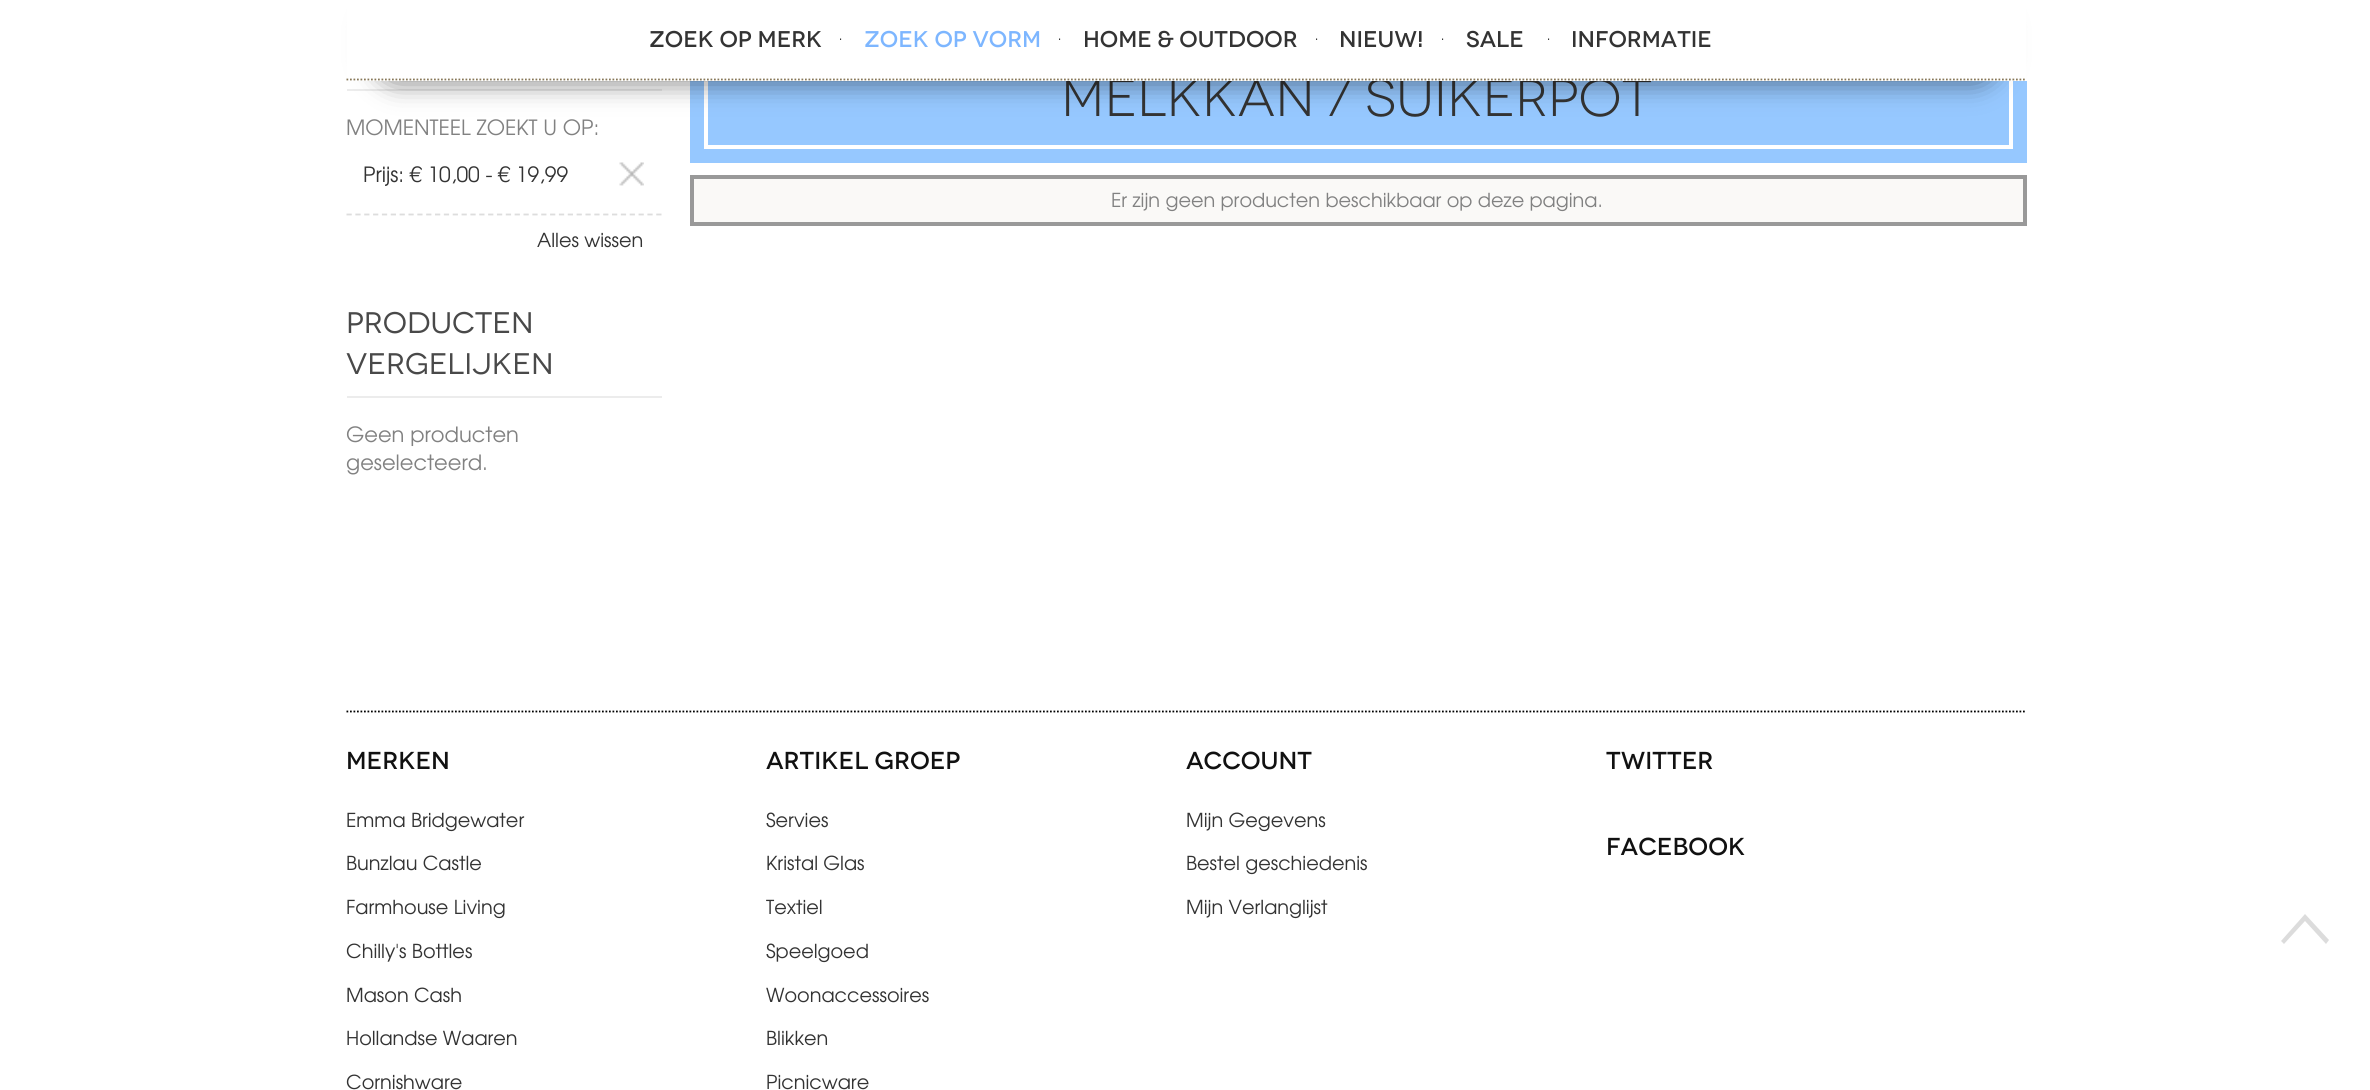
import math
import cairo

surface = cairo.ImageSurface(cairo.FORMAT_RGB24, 2370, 1090)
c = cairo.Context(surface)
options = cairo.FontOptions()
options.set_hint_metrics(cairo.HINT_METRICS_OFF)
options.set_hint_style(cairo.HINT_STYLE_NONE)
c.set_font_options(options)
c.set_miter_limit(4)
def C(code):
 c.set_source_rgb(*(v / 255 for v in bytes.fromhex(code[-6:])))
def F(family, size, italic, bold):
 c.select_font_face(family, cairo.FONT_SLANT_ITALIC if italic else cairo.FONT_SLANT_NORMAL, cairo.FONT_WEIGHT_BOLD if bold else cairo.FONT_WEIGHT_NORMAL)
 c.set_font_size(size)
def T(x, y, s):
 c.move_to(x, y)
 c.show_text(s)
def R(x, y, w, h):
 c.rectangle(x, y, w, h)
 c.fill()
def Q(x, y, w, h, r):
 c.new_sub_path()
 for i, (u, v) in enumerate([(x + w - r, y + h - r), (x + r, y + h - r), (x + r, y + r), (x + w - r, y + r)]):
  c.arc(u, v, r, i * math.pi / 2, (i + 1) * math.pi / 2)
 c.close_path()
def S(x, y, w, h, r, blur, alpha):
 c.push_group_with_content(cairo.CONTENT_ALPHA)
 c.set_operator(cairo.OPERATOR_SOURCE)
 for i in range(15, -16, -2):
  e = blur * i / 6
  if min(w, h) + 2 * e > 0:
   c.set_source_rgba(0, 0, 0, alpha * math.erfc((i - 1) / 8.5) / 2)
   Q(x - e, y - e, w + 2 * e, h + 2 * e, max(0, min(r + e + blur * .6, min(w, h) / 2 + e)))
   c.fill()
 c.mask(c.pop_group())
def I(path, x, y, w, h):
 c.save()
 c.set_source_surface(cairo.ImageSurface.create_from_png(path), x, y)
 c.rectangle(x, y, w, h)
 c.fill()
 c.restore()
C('ffffff')
c.paint()
C('96c8ff')
R(690,81,1337,82)
c.rectangle(706,41,1305,106)
C('ffffff')
c.set_line_width(4)
c.stroke()
F('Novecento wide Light',52.5,0,0)
C('333333')
T(1061,116,'Melkkan / Suikerpot')
C('ffffff')
R(1066,78,586,3)
C('ececec')
R(347,89,315,2)
C('000000')
S(373,4,1627,80,25,13,.45)
C('ffffff')
R(347,0,1679,81)
c.new_path()
c.move_to(346.5,79.5)
c.line_to(2026.5,79.5)
C('877758')
c.set_line_width(1.8)
c.set_dash([1.75,1.75])
c.stroke()
F('Novecento wide SemiBold',22.75,0,0)
C('333333')
T(649,47,'Zoek op Merk')
F('TeX Gyre Adventor',12,0,0)
C('000000')
T(839,40,'.')
F('Novecento wide SemiBold',22.75,0,0)
C('7db6ff')
T(864,47,'Zoek op Vorm')
F('TeX Gyre Adventor',12,0,0)
C('000000')
T(1058,40,'.')
F('Novecento wide SemiBold',22.75,0,0)
C('333333')
T(1083,47,'Home & Outdoor')
F('TeX Gyre Adventor',12,0,0)
C('000000')
T(1315,40,'.')
F('Novecento wide SemiBold',22.75,0,0)
C('333333')
T(1339,47,'Nieuw!')
F('TeX Gyre Adventor',12,0,0)
C('000000')
T(1441,40,'.')
F('Novecento wide SemiBold',22.75,0,0)
C('333333')
T(1466,47,'SALE')
F('TeX Gyre Adventor',12,0,0)
C('000000')
T(1547,40,'.')
F('Novecento wide SemiBold',22.75,0,0)
C('333333')
T(1571,47,'Informatie')
F('TeX Gyre Adventor',21,0,0)
C('818181')
T(346,135,'MOMENTEEL ZOEKT U OP:')
C('333333')
T(363,182,'Prijs: € 10,00 - € 19,99')
I('1.png',619,162,25,24)
c.new_path()
c.move_to(346.5,214.5)
c.line_to(661.5,214.5)
C('dddddd')
c.set_dash([5.25,3.6])
c.stroke()
F('TeX Gyre Adventor',19.25,0,0)
C('333333')
T(537,247,'Alles wissen')
C('ececec')
R(347,396,315,2)
F('Novecento wide',29.75,0,0)
C('494949')
T(346,333,'PRODUCTEN')
T(346,374,'VERGELIJKEN')
F('TeX Gyre Adventor',21,0,0)
C('818181')
T(346,442,'Geen producten')
T(346,470,'geselecteerd.')
C('faf9f7')
c.rectangle(692,177,1333,47)
c.fill_preserve()
C('999999')
c.set_line_width(4)
c.set_dash([])
c.stroke()
F('TeX Gyre Adventor',19.25,0,0)
C('818181')
T(1111,207,'Er zijn geen producten beschikbaar op deze pagina.')
c.new_path()
c.move_to(346.5,711.5)
c.line_to(2026.5,711.5)
C('000000')
c.set_line_width(1.8)
c.set_dash([1.75,1.75])
c.stroke()
F('Novecento wide SemiBold',24.5,0,0)
C('111111')
T(346,769,'MERKEN')
F('TeX Gyre Adventor',19.25,0,0)
C('333333')
T(346,827,'Emma Bridgewater')
T(346,870,'Bunzlau Castle')
T(346,914,'Farmhouse Living')
T(346,958,'Chilly\'s Bottles')
T(346,1002,'Mason Cash')
T(346,1045,'Hollandse Waaren')
T(346,1089,'Cornishware')
F('Novecento wide SemiBold',24.5,0,0)
C('111111')
T(766,769,'ARTIKEL GROEP')
F('TeX Gyre Adventor',19.25,0,0)
C('333333')
T(766,827,'Servies')
T(766,870,'Kristal Glas')
T(766,914,'Textiel')
T(766,958,'Speelgoed')
T(766,1002,'Woonaccessoires')
T(766,1045,'Blikken')
T(766,1089,'Picnicware')
F('Novecento wide SemiBold',24.5,0,0)
C('111111')
T(1186,769,'ACCOUNT')
F('TeX Gyre Adventor',19.25,0,0)
C('333333')
T(1186,827,'Mijn Gegevens')
T(1186,870,'Bestel geschiedenis')
T(1186,914,'Mijn Verlanglijst')
F('Novecento wide SemiBold',24.5,0,0)
C('111111')
T(1606,769,'TWITTER')
T(1606,855,'FACEBOOK')
C('dcdcdc')
c.new_path()
c.move_to(2326,944)
c.line_to(2305,921)
c.line_to(2284,944)
c.line_to(2281,941)
c.line_to(2305,914)
c.line_to(2329,940)
c.close_path()
c.fill()
surface.write_to_png('o.png')
